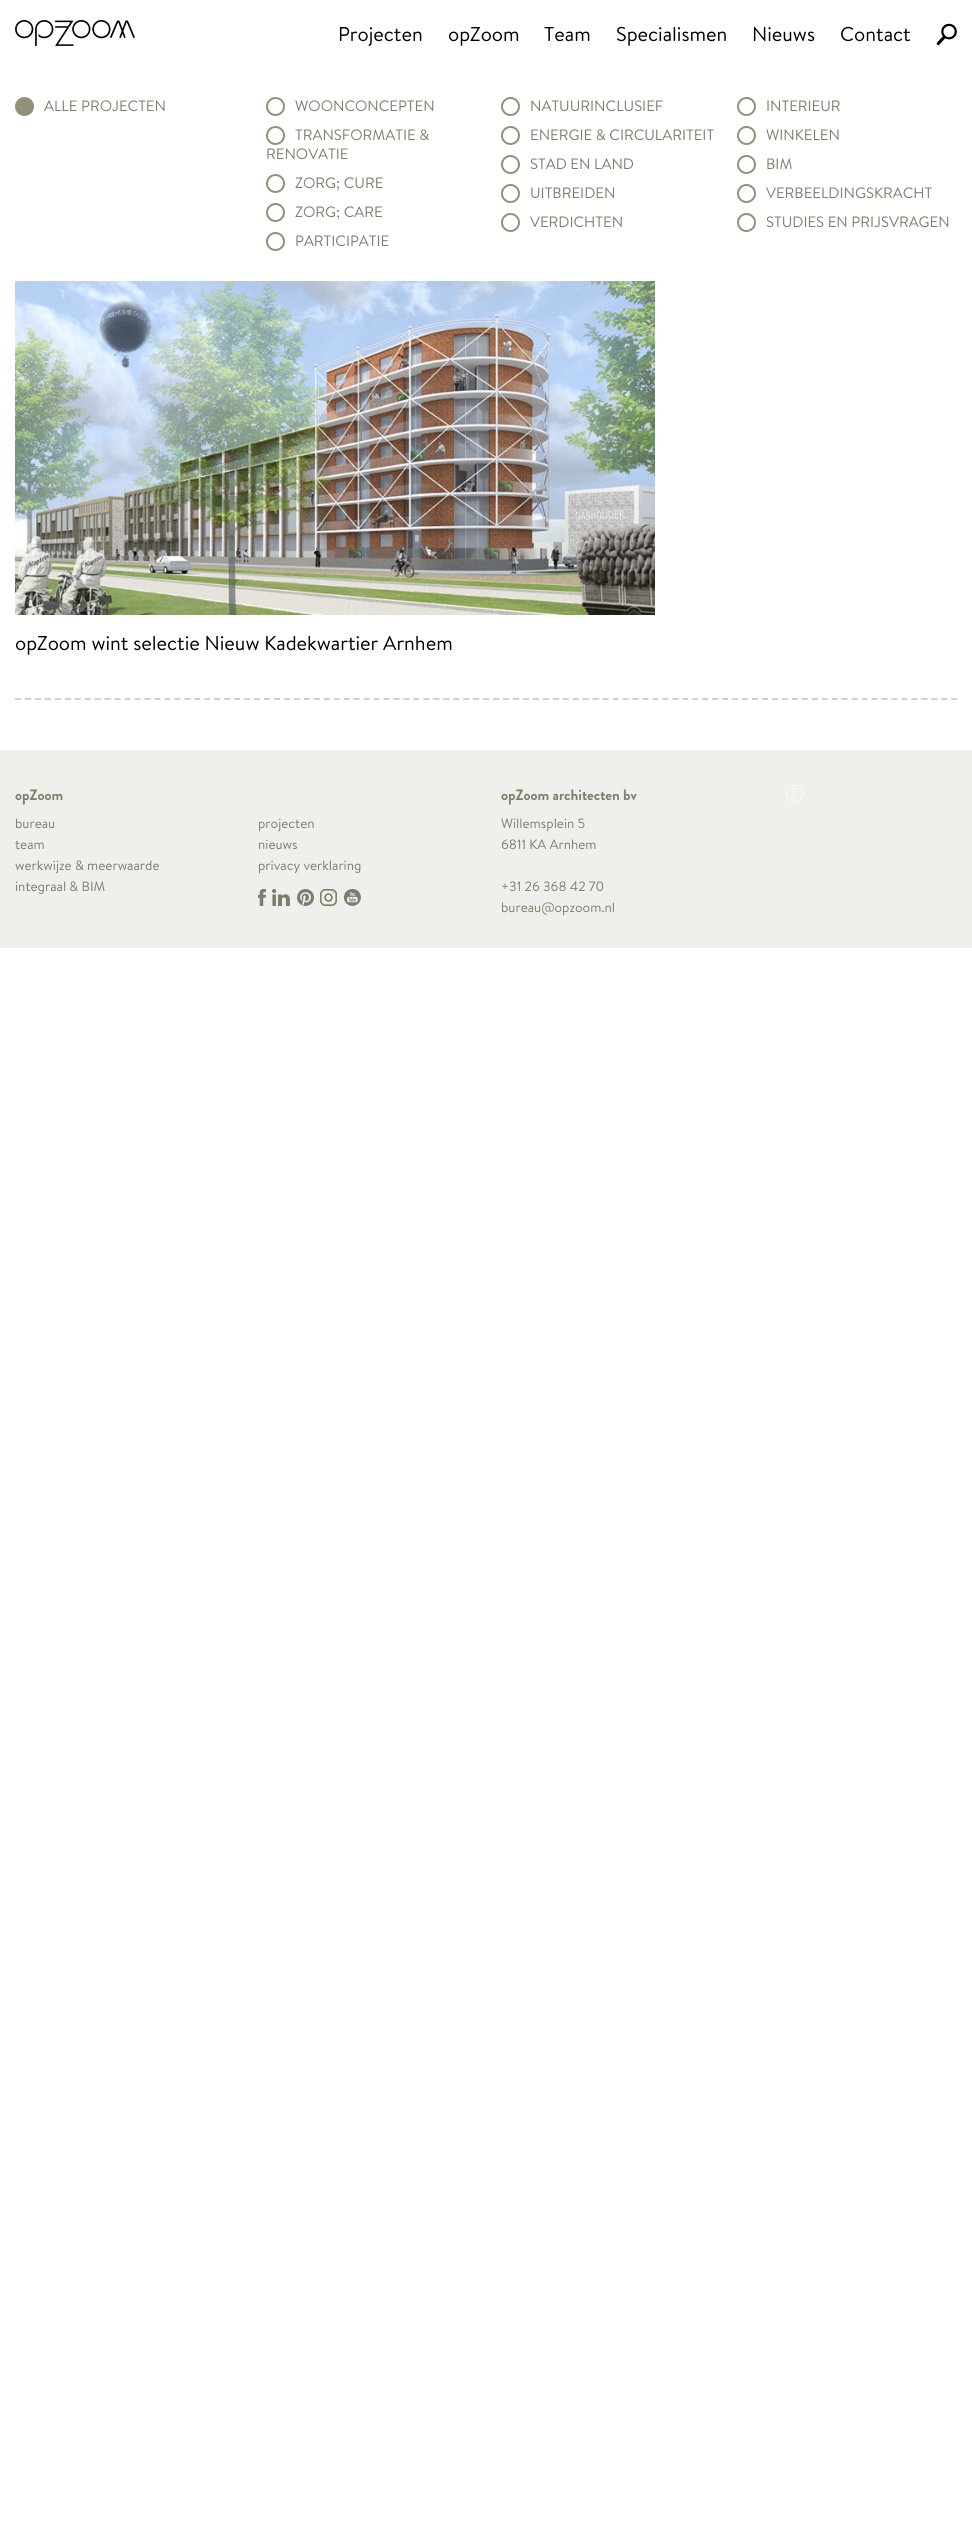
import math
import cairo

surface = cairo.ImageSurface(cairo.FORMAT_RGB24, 972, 2546)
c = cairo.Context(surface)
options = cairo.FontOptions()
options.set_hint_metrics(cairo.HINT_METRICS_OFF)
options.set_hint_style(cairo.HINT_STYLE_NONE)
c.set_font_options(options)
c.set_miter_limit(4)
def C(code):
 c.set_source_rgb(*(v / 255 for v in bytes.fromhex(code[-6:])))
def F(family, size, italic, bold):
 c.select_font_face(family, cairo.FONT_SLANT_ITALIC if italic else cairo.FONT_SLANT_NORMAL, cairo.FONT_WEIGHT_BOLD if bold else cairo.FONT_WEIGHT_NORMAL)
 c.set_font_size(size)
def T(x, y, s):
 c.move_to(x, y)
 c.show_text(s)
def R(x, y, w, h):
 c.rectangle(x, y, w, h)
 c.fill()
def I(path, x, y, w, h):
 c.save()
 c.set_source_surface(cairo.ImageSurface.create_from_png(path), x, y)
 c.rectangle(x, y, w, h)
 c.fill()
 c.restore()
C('ffffff')
c.paint()
I('1.png',15,20,120,26)
F('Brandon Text',20,0,0)
C('000000')
T(338,41,'Projecten')
T(448,41,'opZoom')
T(544,41,'Team')
T(616,41,'Specialismen')
T(752,41,'Nieuws')
T(840,41,'Contact')
I('2.png',936,23,21,23)
C('919178')
c.arc(24.5,106.5,8.5,0,2 * math.pi)
c.fill_preserve()
c.stroke()
F('Brandon Text',15,0,0)
C('7d7d6e')
T(44,111,'ALLE PROJECTEN')
c.new_path()
c.arc(275.5,106.5,8.5,0,2 * math.pi)
C('919178')
c.stroke()
C('7d7d6e')
T(295,111,'WOONCONCEPTEN')
c.new_path()
c.arc(510.5,106.5,8.5,0,2 * math.pi)
C('919178')
c.stroke()
C('7d7d6e')
T(530,111,'NATUURINCLUSIEF')
c.new_path()
c.arc(746.5,106.5,8.5,0,2 * math.pi)
C('919178')
c.stroke()
C('7d7d6e')
T(766,111,'INTERIEUR')
c.new_path()
c.arc(275.5,135.5,8.5,0,2 * math.pi)
C('919178')
c.stroke()
C('7d7d6e')
T(295,140,'TRANSFORMATIE &')
T(266,159,'RENOVATIE')
c.new_path()
c.arc(510.5,135.5,8.5,0,2 * math.pi)
C('919178')
c.stroke()
C('7d7d6e')
T(530,140,'ENERGIE & CIRCULARITEIT')
c.new_path()
c.arc(746.5,135.5,8.5,0,2 * math.pi)
C('919178')
c.stroke()
C('7d7d6e')
T(766,140,'WINKELEN')
c.new_path()
c.arc(510.5,164.5,8.5,0,2 * math.pi)
C('919178')
c.stroke()
C('7d7d6e')
T(530,169,'STAD EN LAND')
c.new_path()
c.arc(746.5,164.5,8.5,0,2 * math.pi)
C('919178')
c.stroke()
C('7d7d6e')
T(766,169,'BIM')
c.new_path()
c.arc(275.5,183.5,8.5,0,2 * math.pi)
C('919178')
c.stroke()
C('7d7d6e')
T(295,188,'ZORG; CURE')
c.new_path()
c.arc(510.5,193.5,8.5,0,2 * math.pi)
C('919178')
c.stroke()
C('7d7d6e')
T(530,198,'UITBREIDEN')
c.new_path()
c.arc(746.5,193.5,8.5,0,2 * math.pi)
C('919178')
c.stroke()
C('7d7d6e')
T(766,198,'VERBEELDINGSKRACHT')
c.new_path()
c.arc(275.5,212.5,8.5,0,2 * math.pi)
C('919178')
c.stroke()
C('7d7d6e')
T(295,217,'ZORG; CARE')
c.new_path()
c.arc(510.5,222.5,8.5,0,2 * math.pi)
C('919178')
c.stroke()
C('7d7d6e')
T(530,227,'VERDICHTEN')
c.new_path()
c.arc(746.5,222.5,8.5,0,2 * math.pi)
C('919178')
c.stroke()
C('7d7d6e')
T(766,227,'STUDIES EN PRIJSVRAGEN')
c.new_path()
c.arc(275.5,241.5,8.5,0,2 * math.pi)
C('919178')
c.stroke()
C('7d7d6e')
T(295,246,'PARTICIPATIE')
I('3.png',15,281,640,334)
F('Brandon Text',20,0,0)
C('000000')
T(15,650,'opZoom wint selectie Nieuw Kadekwartier Arnhem')
c.new_path()
c.move_to(15,699)
c.line_to(957,699)
C('d1d1cc')
c.set_dash([6,3.96])
c.stroke()
C('efefeb')
R(0,750,972,198)
F('Brandon Grotesque',15,0,1)
C('7d7d6e')
T(15,800,'opZoom')
F('Brandon Text',13.5,0,0)
T(15,828,'bureau')
T(258,828,'projecten')
T(15,849,'team')
T(258,849,'nieuws')
T(15,870,'werkwijze & meerwaarde')
T(258,870,'privacy verklaring')
T(15,891,'integraal & BIM')
I('4.png',258,889,8,17)
I('5.png',272,889,18,17)
I('6.png',297,889,17,17)
I('7.png',320,889,17,17)
I('8.png',344,889,17,17)
F('Brandon Grotesque',15,0,1)
T(501,800,'opZoom architecten bv')
F('Brandon Text',13.5,0,0)
T(501,828,'Willemsplein 5')
T(501,849,'6811 KA Arnhem')
T(501,891,'+31 26 368 42 70')
T(501,912,'bureau@opzoom.nl')
I('9.png',786,785,17,17)
surface.write_to_png('o.png')
